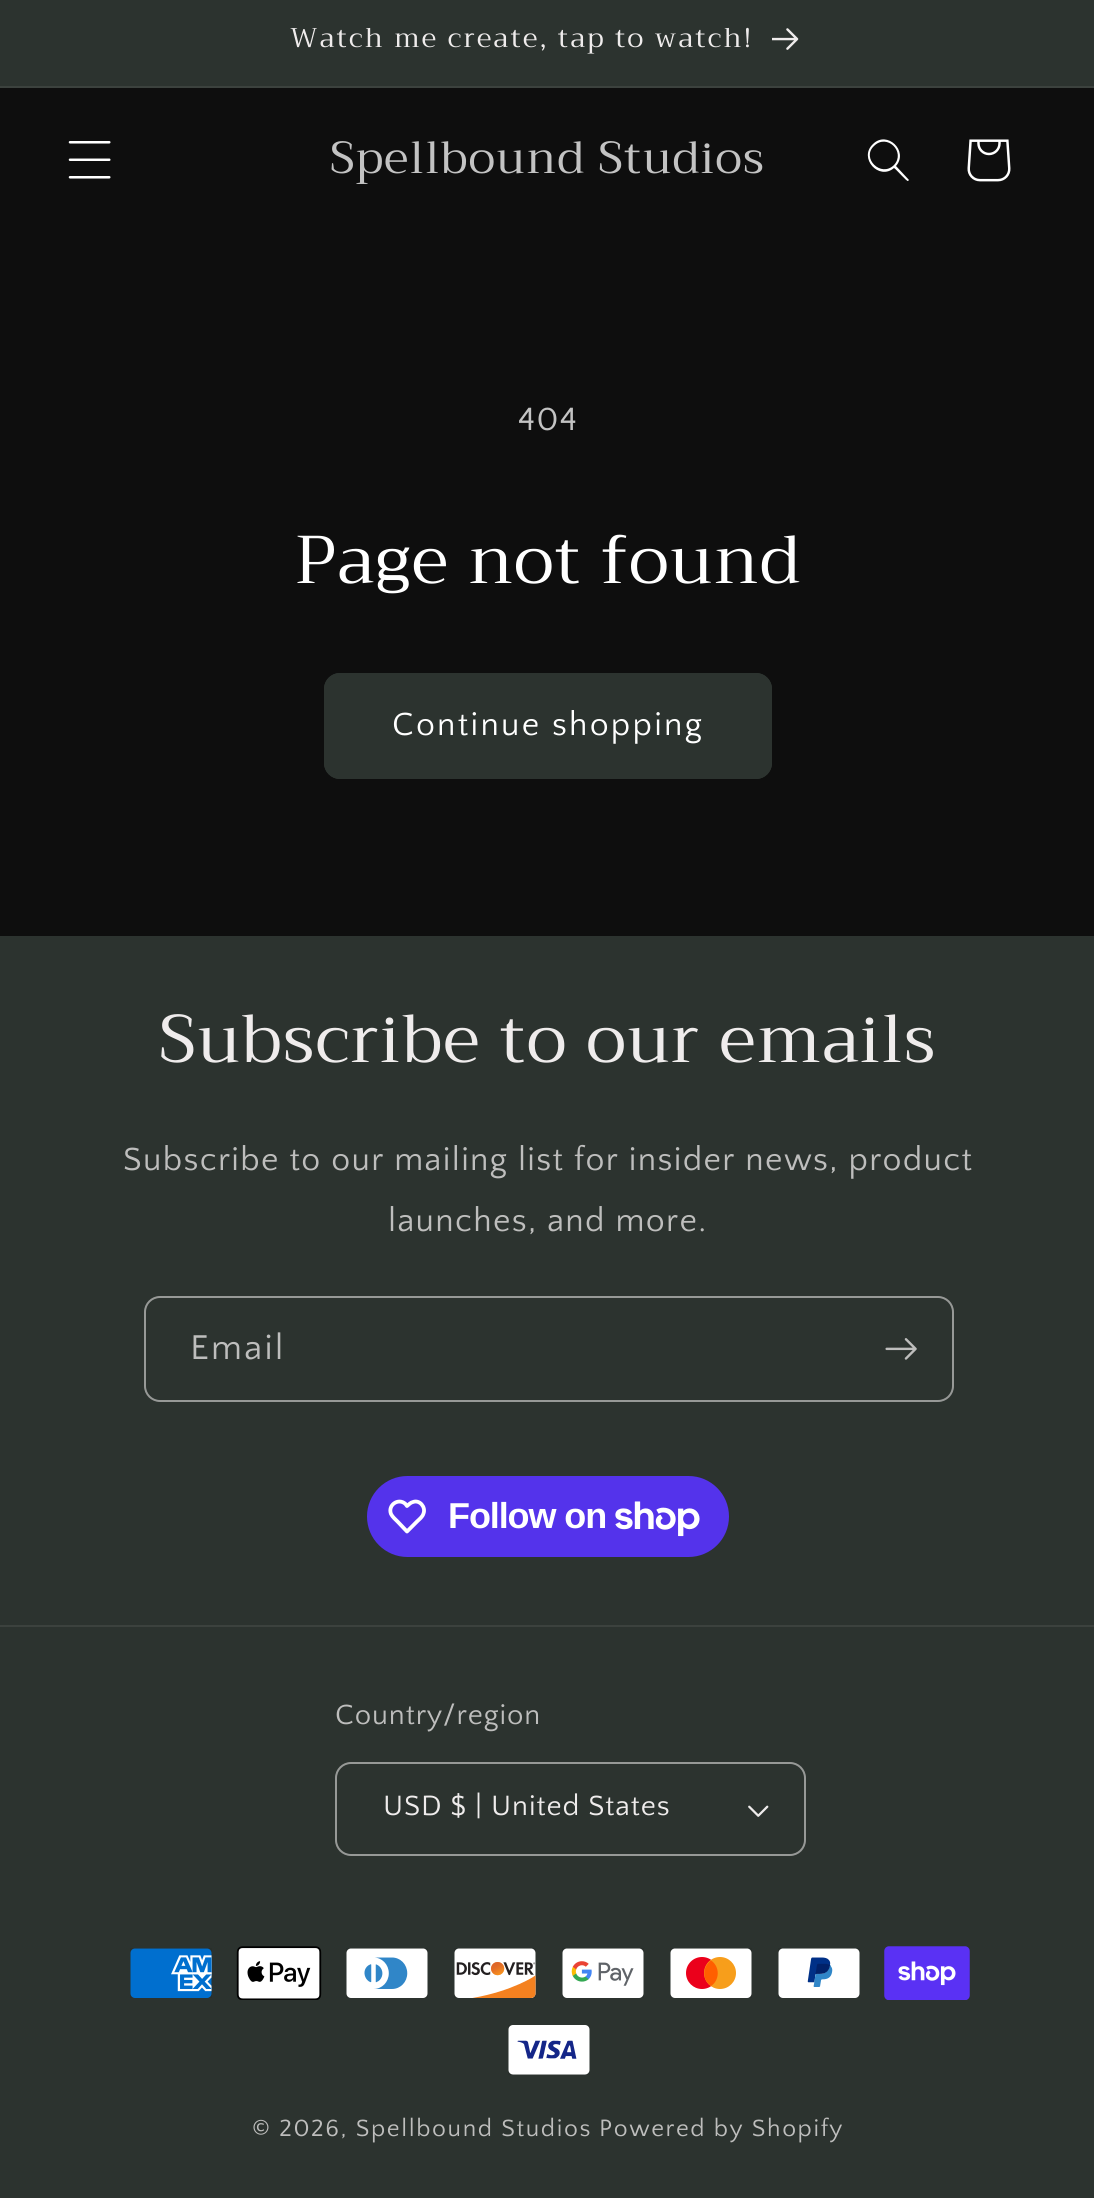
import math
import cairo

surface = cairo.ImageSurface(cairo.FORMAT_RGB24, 1094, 2198)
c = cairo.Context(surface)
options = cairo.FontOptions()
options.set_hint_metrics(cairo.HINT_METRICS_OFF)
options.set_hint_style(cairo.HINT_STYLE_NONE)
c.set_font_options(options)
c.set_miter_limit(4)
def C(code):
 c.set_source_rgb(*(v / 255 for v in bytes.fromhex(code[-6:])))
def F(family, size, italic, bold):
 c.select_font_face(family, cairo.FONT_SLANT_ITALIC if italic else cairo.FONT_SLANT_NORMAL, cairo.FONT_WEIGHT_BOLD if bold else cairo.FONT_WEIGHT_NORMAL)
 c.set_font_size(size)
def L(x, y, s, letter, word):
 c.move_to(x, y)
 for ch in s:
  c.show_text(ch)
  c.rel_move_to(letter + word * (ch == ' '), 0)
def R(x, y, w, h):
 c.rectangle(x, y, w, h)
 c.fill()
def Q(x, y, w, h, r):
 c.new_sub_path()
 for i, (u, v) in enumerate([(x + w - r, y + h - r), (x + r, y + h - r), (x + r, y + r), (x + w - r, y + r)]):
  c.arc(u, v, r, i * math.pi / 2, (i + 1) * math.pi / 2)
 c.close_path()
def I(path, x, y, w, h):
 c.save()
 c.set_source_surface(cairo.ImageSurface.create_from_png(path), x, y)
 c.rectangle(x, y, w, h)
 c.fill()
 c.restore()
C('0e0e0e')
c.paint()
C('2c332f')
R(0,0,1094,86)
C('3c423e')
R(0,86,1094,2)
F('Trirong',27,0,0)
C('efecec')
L(290,47,'Watch me create, tap to watch!',2.25,0)
I('1.png',772,28,27,22)
I('2.png',68,141,43,38)
F('Trirong',45,0,0)
C('c3c3c3')
L(330,173,'Spellbound Studios',1.35,0)
C('ffffff')
c.set_fill_rule(cairo.FILL_RULE_EVEN_ODD)
c.new_path()
c.move_to(894,165)
c.curve_to(881,178,861,158,874,146)
c.curve_to(887,133,906,152,894,165)
c.close_path()
c.move_to(894,168)
c.curve_to(879,181,858,158,873,144)
c.curve_to(887,130,909,151,896,166)
c.line_to(909,180)
c.line_to(908,181)
c.curve_to(907,182,896,169,894,168)
c.close_path()
c.fill()
I('3.png',967,139,44,43)
F('Quattrocento Sans',33.75,0,0)
C('c3c3c3')
L(518,430,'404',1.35,0)
F('Trirong',67.5,0,0)
C('ffffff')
L(295,583,'Page not found',1.35,0)
C('2c332f')
Q(324,673,448,106,16)
c.fill()
Q(325,674,446,104,15)
c.stroke()
F('Quattrocento Sans',33.75,0,0)
C('ffffff')
L(392,735,'Continue shopping',2.25,0)
C('2c332f')
R(0,936,1094,1262)
F('Trirong',67.5,0,0)
C('efecec')
L(159,1062,'Subscribe to our emails',1.35,0)
F('Quattrocento Sans',33.75,0,0)
C('bebebd')
L(123,1170,'Subscribe to our mailing list for insider news, product',1.35,0)
L(388,1231,'launches, and more.',1.35,0)
Q(145,1297,808,104,15)
C('979997')
c.stroke()
F('Quattrocento Sans',36,0,0)
C('bebebd')
L(190,1359,'Email',2.25,0)
I('4.png',885,1338,32,22)
C('5433eb')
Q(367,1476,362,81,40.5)
c.fill()
c.new_path()
c.move_to(405.5,1504)
c.line_to(407,1506)
c.curve_to(409,1504.5,410.5,1502.5,413,1502)
c.curve_to(419.5,1499.5,426,1507,423.5,1513.5)
c.curve_to(422.5,1517,419,1519.5,417,1521.5)
c.line_to(407,1531.5)
c.line_to(397.5,1521.5)
c.curve_to(395.5,1519.5,392.5,1517,391,1514)
c.curve_to(387.5,1505,398.5,1497.5,405.5,1504)
c.close_path()
C('ffffff')
c.set_line_width(3.8)
c.set_line_join(cairo.LINE_JOIN_ROUND)
c.stroke()
F('Liberation Sans',36,0,1)
L(448,1528,'Follow on',-1.1,0)
I('5.png',615,1501,85,36)
C('3c423e')
R(0,1625,1094,2)
F('Quattrocento Sans',29.25,0,0)
C('bebebd')
L(335,1724,'Country/region',.9,0)
I('6.png',748,1805,21,12)
Q(336,1763,469,92,15)
C('979997')
c.set_line_width(2)
c.set_line_join(cairo.LINE_JOIN_MITER)
c.stroke()
C('efecec')
L(383,1815,'USD $ | United States',.9,0)
I('7.png',130,1948,82,50)
I('8.png',236,1946,86,54)
I('9.png',346,1948,82,50)
I('10.png',454,1948,82,50)
I('11.png',562,1948,82,50)
I('12.png',670,1948,82,50)
I('13.png',778,1948,82,50)
I('14.png',884,1946,86,54)
I('15.png',508,2025,82,50)
F('Quattrocento Sans',24.75,0,0)
C('bebebd')
L(252,2136,'© 2026, Spellbound Studios',1.6,0)
L(599,2136,'Powered by Shopify',1.6,0)
surface.write_to_png('o.png')
